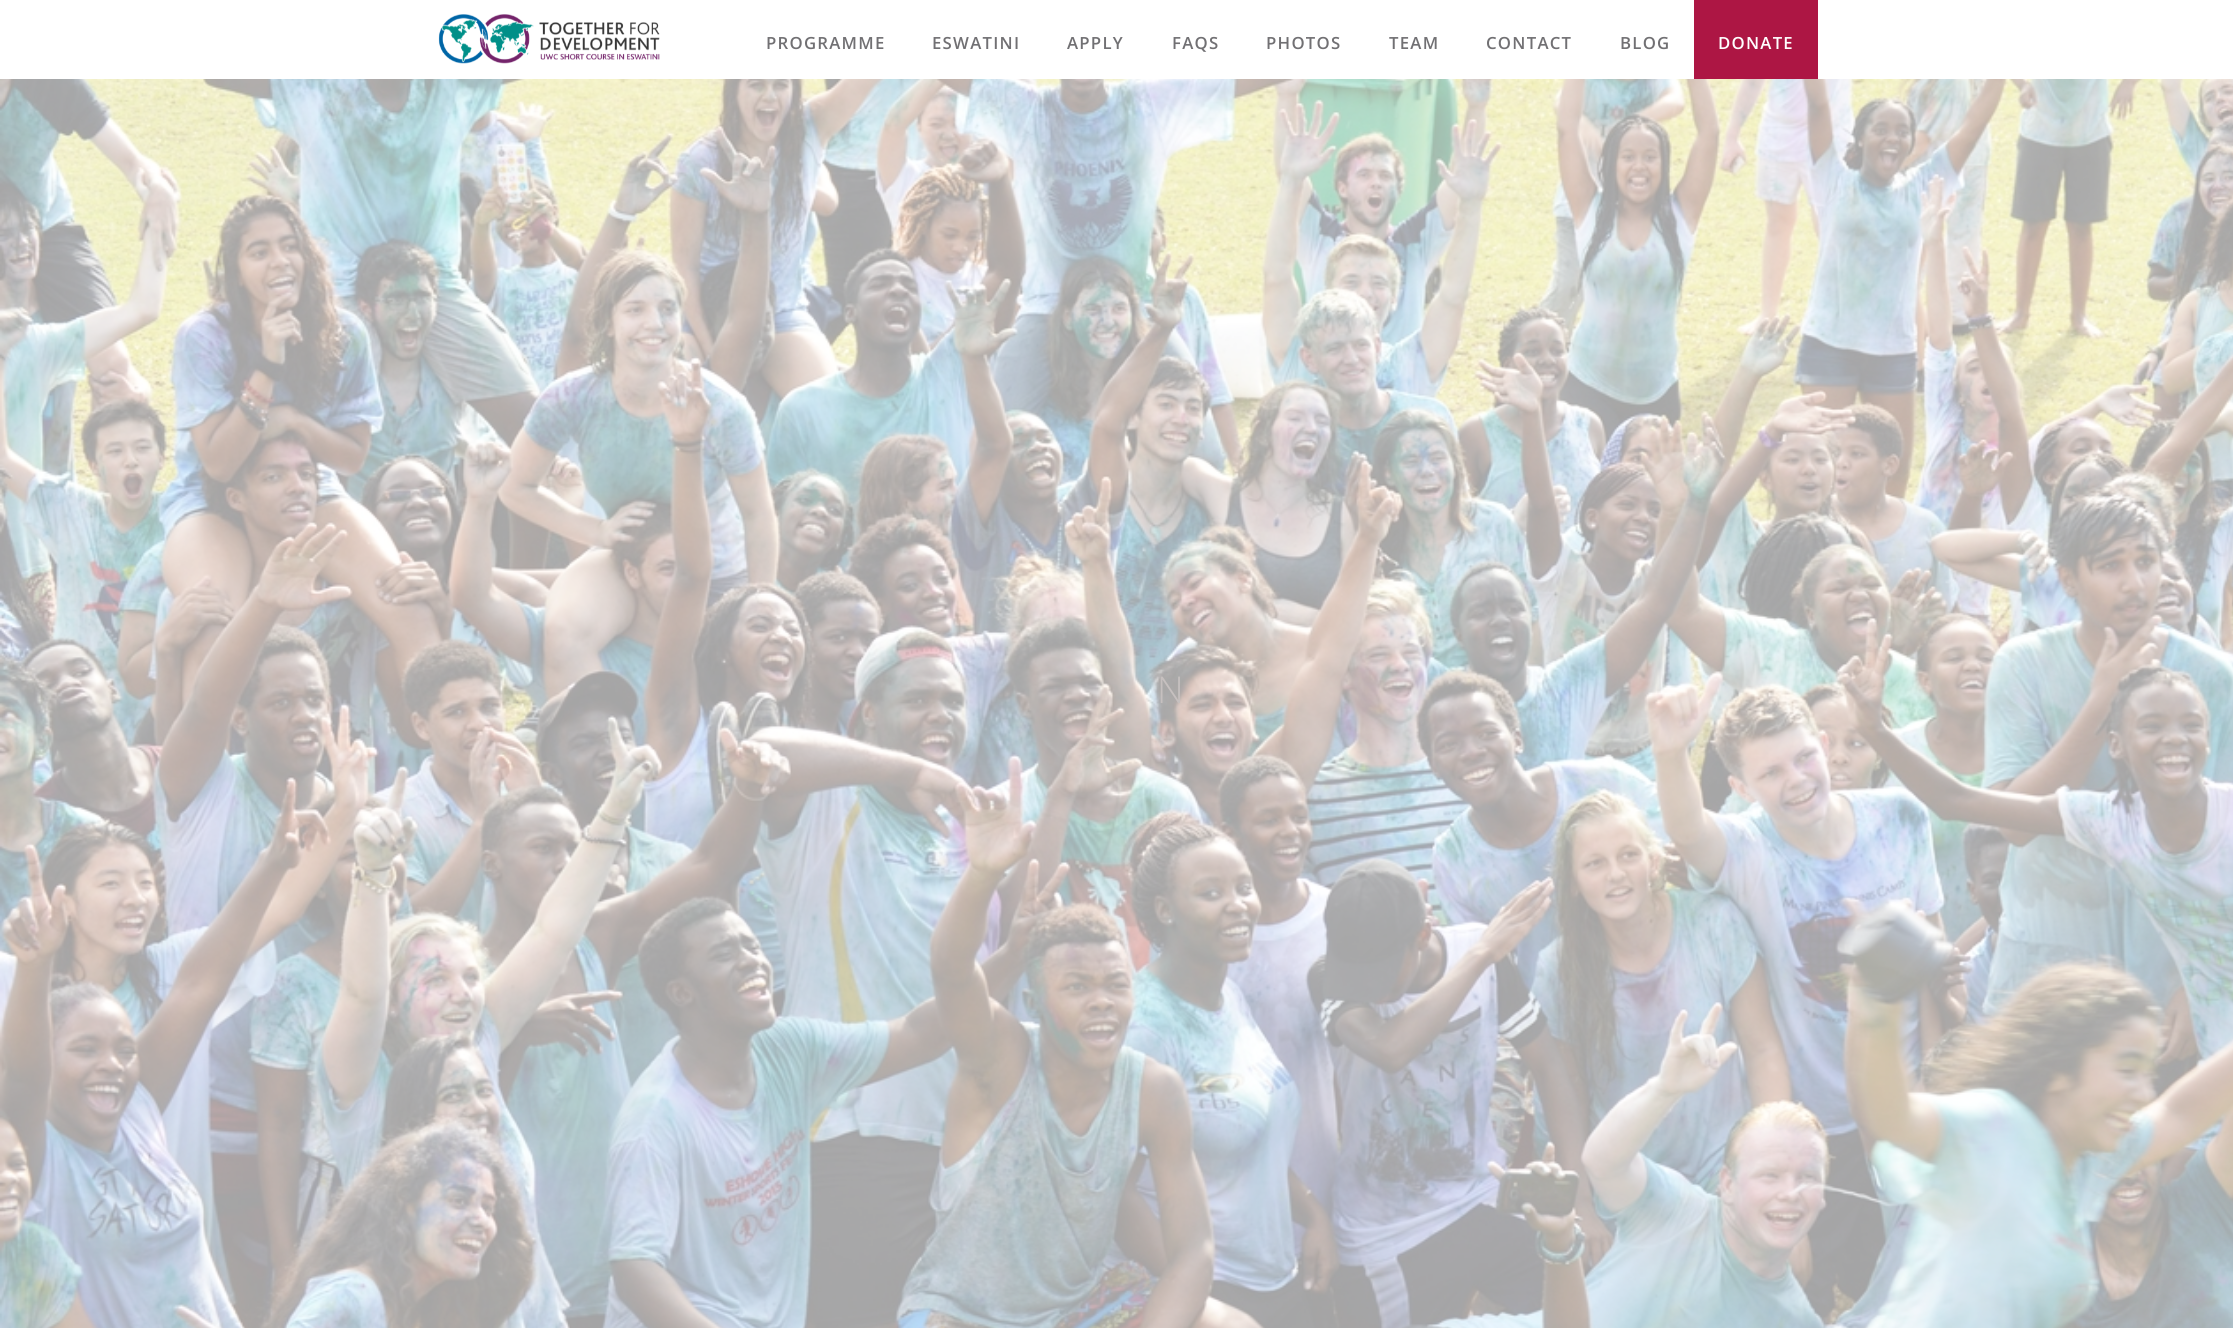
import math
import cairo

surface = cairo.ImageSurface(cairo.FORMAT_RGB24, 2233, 1328)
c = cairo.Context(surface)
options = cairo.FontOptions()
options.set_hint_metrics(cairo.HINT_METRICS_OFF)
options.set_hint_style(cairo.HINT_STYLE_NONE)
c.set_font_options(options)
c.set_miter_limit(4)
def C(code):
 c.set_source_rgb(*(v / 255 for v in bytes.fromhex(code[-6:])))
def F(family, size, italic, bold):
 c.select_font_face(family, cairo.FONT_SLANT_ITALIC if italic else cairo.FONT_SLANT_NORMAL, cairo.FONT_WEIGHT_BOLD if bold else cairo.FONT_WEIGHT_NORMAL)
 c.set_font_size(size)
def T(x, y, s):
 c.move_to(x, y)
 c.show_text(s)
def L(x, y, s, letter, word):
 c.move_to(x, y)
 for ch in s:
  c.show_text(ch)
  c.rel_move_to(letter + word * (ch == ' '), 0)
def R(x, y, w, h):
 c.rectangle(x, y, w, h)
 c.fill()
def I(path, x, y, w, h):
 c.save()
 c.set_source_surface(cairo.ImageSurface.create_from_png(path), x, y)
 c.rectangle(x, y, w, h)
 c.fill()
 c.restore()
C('ffffff')
c.paint()
I('1.png',438,14,222,50)
F('Open Sans SemiBold',16.75,0,0)
C('717073')
L(766,49,'PROGRAMME',1.25,0)
L(932,49,'ESWATINI',1.25,0)
L(1067,49,'APPLY',1.25,0)
L(1172,49,'FAQS',1.25,0)
L(1266,49,'PHOTOS',1.25,0)
L(1389,49,'TEAM',1.25,0)
L(1486,49,'CONTACT',1.25,0)
L(1620,49,'BLOG',1.25,0)
C('ad1644')
R(1694,0,124,79)
C('ffffff')
L(1718,49,'DONATE',1.25,0)
I('2.png',0,79,2233,1249)
F('Open Sans Light',37,0,0)
C('c6c0bf')
T(1157,703,'N')
surface.write_to_png('o.png')
